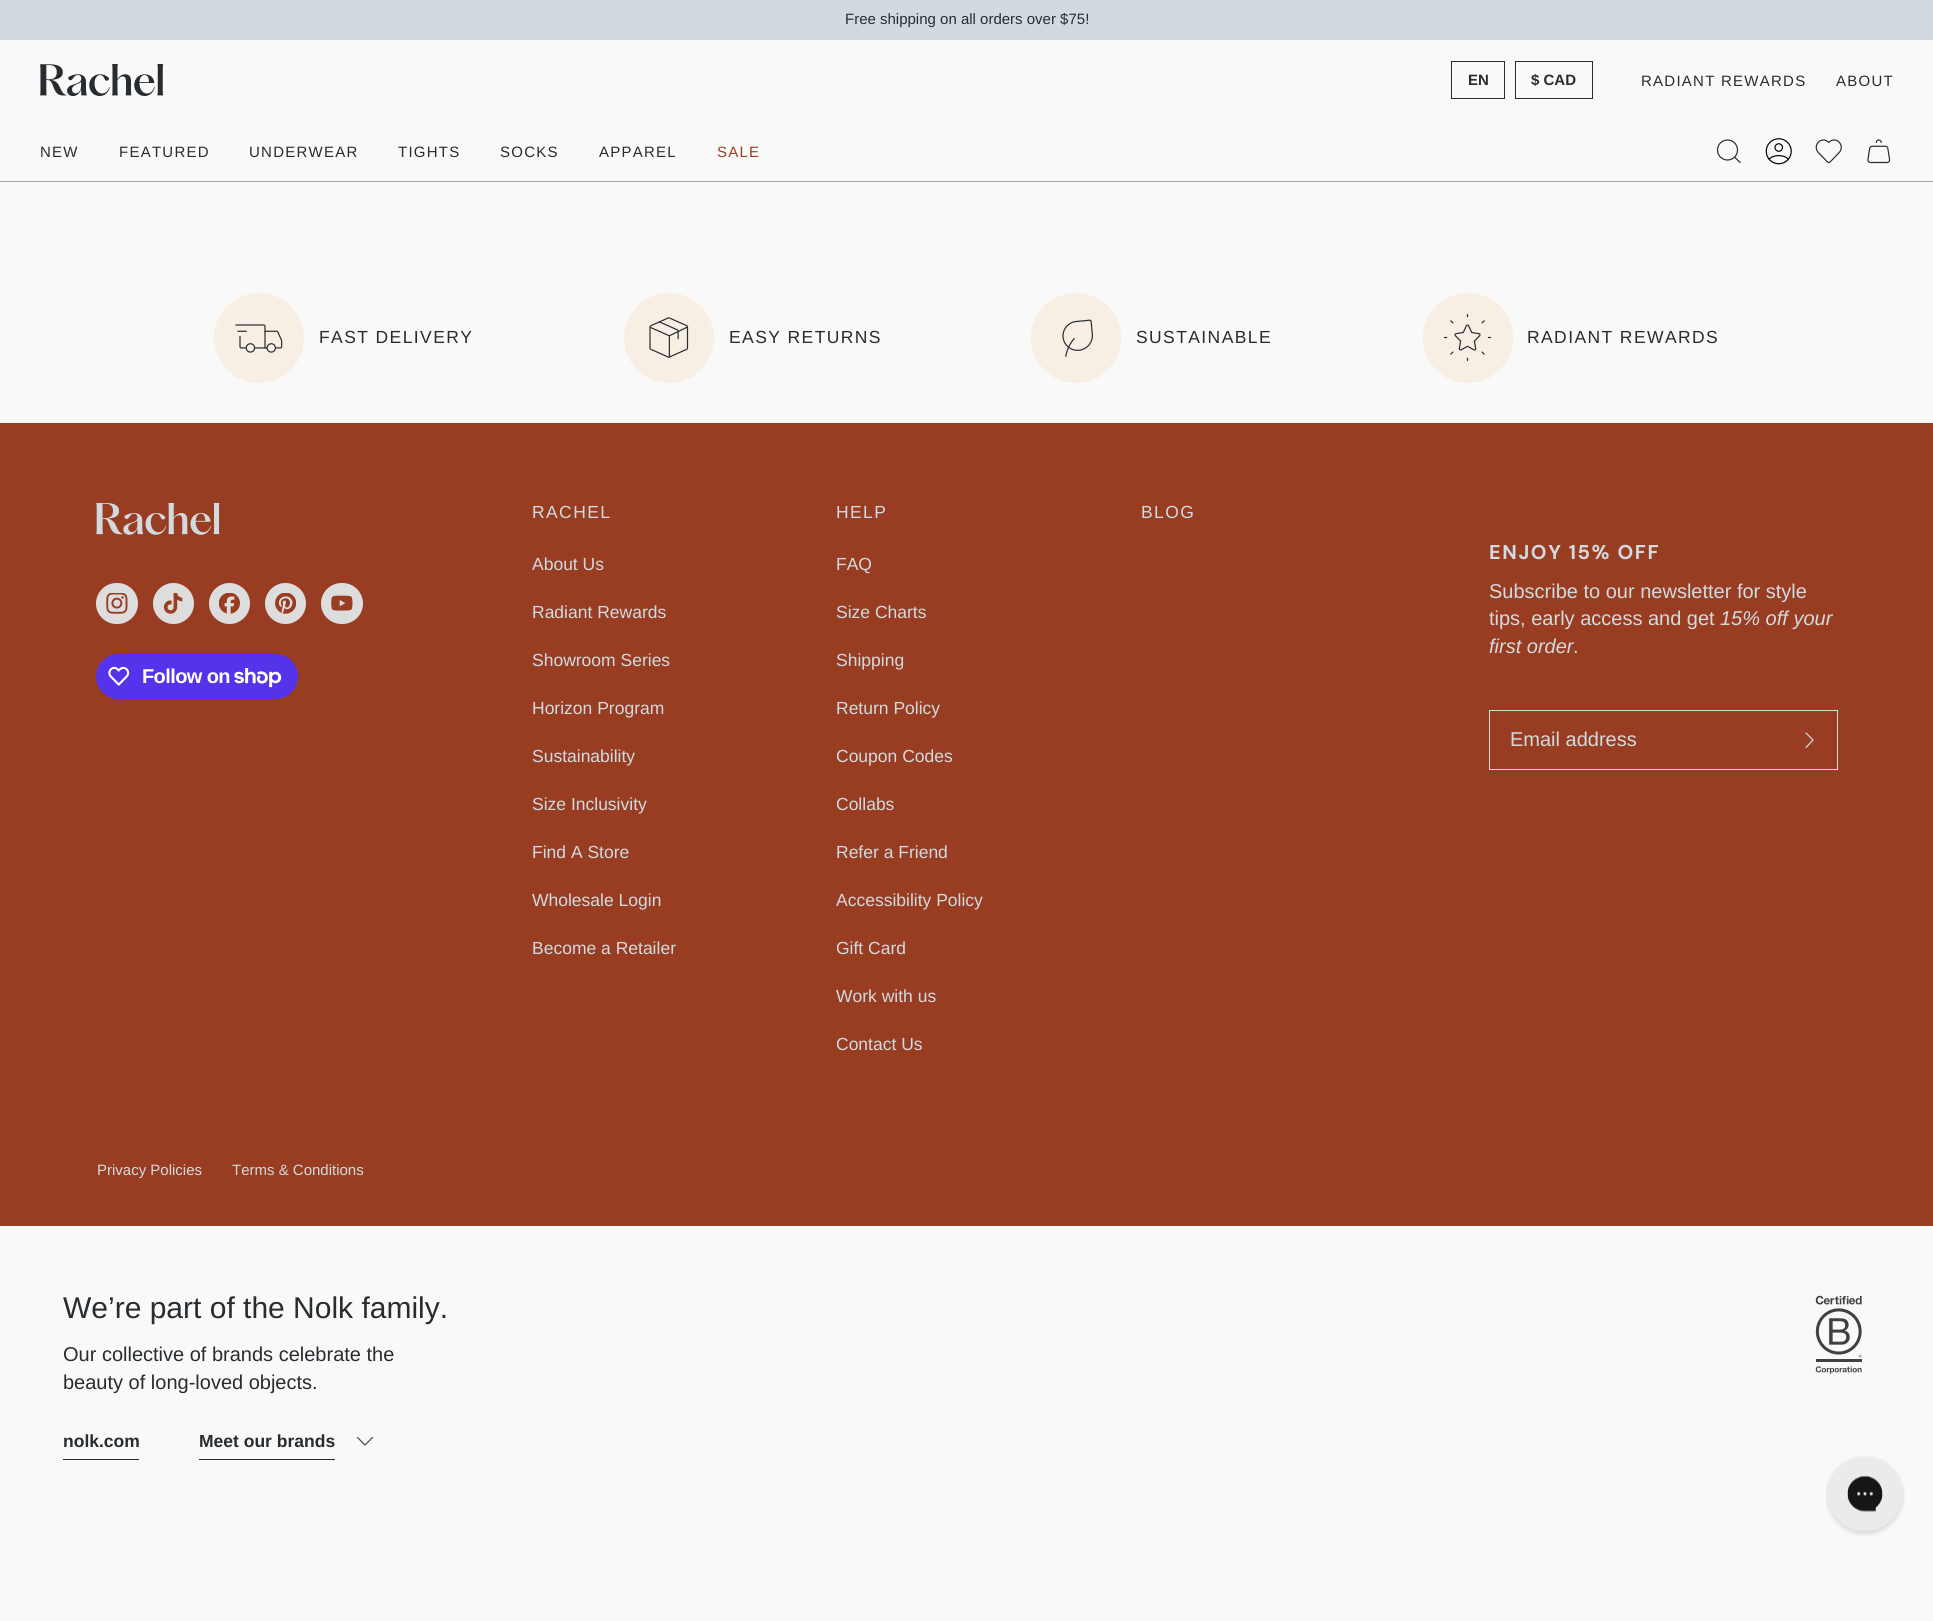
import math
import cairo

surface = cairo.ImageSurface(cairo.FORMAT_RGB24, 1933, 1621)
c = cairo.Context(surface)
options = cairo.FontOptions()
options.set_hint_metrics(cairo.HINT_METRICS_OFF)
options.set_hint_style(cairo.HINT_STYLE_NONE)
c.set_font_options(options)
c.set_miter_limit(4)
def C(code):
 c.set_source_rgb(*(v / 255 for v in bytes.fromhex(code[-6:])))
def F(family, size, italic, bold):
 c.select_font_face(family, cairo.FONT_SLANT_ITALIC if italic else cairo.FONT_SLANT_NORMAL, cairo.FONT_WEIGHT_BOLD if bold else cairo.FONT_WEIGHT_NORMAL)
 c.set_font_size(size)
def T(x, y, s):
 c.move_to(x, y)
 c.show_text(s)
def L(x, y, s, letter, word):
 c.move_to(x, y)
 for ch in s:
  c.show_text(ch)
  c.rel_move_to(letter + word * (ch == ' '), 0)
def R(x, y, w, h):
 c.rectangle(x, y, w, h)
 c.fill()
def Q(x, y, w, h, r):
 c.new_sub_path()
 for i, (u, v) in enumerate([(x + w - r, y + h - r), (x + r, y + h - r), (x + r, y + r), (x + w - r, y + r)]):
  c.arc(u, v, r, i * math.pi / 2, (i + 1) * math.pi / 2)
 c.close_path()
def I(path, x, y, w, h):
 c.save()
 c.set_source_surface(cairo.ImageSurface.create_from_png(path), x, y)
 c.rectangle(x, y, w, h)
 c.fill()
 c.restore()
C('faf9f9')
c.paint()
C('d1dadf')
R(0,0,1933,40)
F('Liberation Sans',15,0,0)
C('272c30')
T(845,24,'Free shipping on all orders over $75!')
C('a6a7a9')
R(0,181,1933,1)
I('1.png',40,64,124,32)
c.rectangle(1451.5,61.5,53,37)
C('272c30')
c.set_line_width(1)
c.stroke()
F('Liberation Sans',15,0,1)
T(1468,85,'EN')
c.rectangle(1515.5,61.5,77,37)
c.stroke()
T(1531,85,'$ CAD')
F('Liberation Sans',15,0,0)
C('2f2929')
L(1641,86,'RADIANT REWARDS',1.25,0)
L(1836,86,'ABOUT',1.25,0)
L(40,157,'NEW',1.25,0)
L(119,157,'FEATURED',1.25,0)
L(249,157,'UNDERWEAR',1.25,0)
L(398,157,'TIGHTS',1.25,0)
L(500,157,'SOCKS',1.25,0)
L(599,157,'APPAREL',1.25,0)
C('993d22')
L(717,157,'SALE',1.25,0)
I('2.png',1716,139,25,24)
I('3.png',1765,138,27,27)
I('4.png',1815,139,27,25)
I('5.png',1867,139,24,25)
C('f7eee4')
c.arc(259,338,45,0,2 * math.pi)
c.fill()
I('6.png',235,324,48,29)
F('Liberation Sans',17.5,0,0)
C('2f2929')
L(319,343,'FAST DELIVERY',1.4,0)
C('f7eee4')
c.new_path()
c.arc(669,338,45,0,2 * math.pi)
c.fill()
I('7.png',649,317,40,41)
C('2f2929')
L(729,343,'EASY RETURNS',1.4,0)
C('f7eee4')
c.new_path()
c.arc(1076,338,45,0,2 * math.pi)
c.fill()
I('8.png',1062,319,31,38)
C('2f2929')
L(1136,343,'SUSTAINABLE',1.4,0)
C('f7eee4')
c.new_path()
c.arc(1468,338,45,0,2 * math.pi)
c.fill()
I('9.png',1444,314,47,47)
C('2f2929')
L(1527,343,'RADIANT REWARDS',1.4,0)
C('993d22')
R(0,423,1933,803)
I('10.png',96,503,124,32)
C('dddddd')
Q(96,583,42,41,20.5)
c.fill()
I('11.png',106,593,22,21)
c.arc(173.5,603.5,20.5,0,2 * math.pi)
c.fill()
I('12.png',163,593,20,21)
c.arc(229.5,603.5,20.5,0,2 * math.pi)
c.fill()
I('13.png',219,593,21,21)
c.arc(285.5,603.5,20.5,0,2 * math.pi)
c.fill()
I('14.png',275,593,21,21)
Q(321,583,42,41,20.5)
c.fill()
I('15.png',331,595,22,16)
C('5433eb')
Q(96,654,202,45,22.5)
c.fill()
I('16.png',108,666,22,20)
F('Liberation Sans',20,0,1)
C('ffffff')
L(142,683,'Follow on',-.6,0)
I('17.png',234,668,48,20)
F('Liberation Sans',17.5,0,0)
C('d1dadf')
L(532,518,'RACHEL',1.4,0)
T(532,570,'About Us')
T(532,618,'Radiant Rewards')
T(532,666,'Showroom Series')
T(532,714,'Horizon Program')
T(532,762,'Sustainability')
T(532,810,'Size Inclusivity')
T(532,858,'Find A Store')
T(532,906,'Wholesale Login')
T(532,954,'Become a Retailer')
L(836,518,'HELP',1.4,0)
T(836,570,'FAQ')
T(836,618,'Size Charts')
T(836,666,'Shipping')
T(836,714,'Return Policy')
T(836,762,'Coupon Codes')
T(836,810,'Collabs')
T(836,858,'Refer a Friend')
T(836,906,'Accessibility Policy')
T(836,954,'Gift Card')
T(836,1002,'Work with us')
T(836,1050,'Contact Us')
L(1141,518,'BLOG',1.4,0)
F('DM Sans',20,0,1)
L(1489,559,'ENJOY 15% OFF',1.6,0)
F('Liberation Sans',20,0,0)
T(1489,598,'Subscribe to our newsletter for style')
T(1489,625,'tips, early access and get')
F('Liberation Sans',20,1,0)
T(1720,625,'15% off your')
T(1489,653,'first order')
F('Liberation Sans',20,0,0)
T(1573,653,'.')
c.rectangle(1489.5,710.5,348,59)
c.stroke()
T(1510,746,'Email address')
c.new_path()
c.move_to(1806,733)
c.line_to(1813,740)
c.line_to(1806,747.5)
c.set_line_width(1.2)
c.set_line_cap(cairo.LINE_CAP_ROUND)
c.set_line_join(cairo.LINE_JOIN_ROUND)
c.stroke()
F('Liberation Sans',15,0,0)
T(97,1175,'Privacy Policies')
T(232,1175,'Terms & Conditions')
F('Liberation Sans',30,0,0)
C('272c30')
T(63,1318,'We’re part of the Nolk family.')
F('Liberation Sans',20,0,0)
T(63,1361,'Our collective of brands celebrate the')
T(63,1389,'beauty of long-loved objects.')
I('18.png',1815,1295,47,79)
R(63,1459,76,1)
F('Liberation Sans',17.5,0,1)
T(63,1447,'nolk.com')
R(199,1459,136,1)
T(199,1447,'Meet our brands')
c.new_path()
c.move_to(357.5,1437.5)
c.line_to(365,1445)
c.line_to(372.5,1437.5)
C('4e4741')
c.stroke()
I('19.png',1825,1456,80,80)
surface.write_to_png('o.png')
